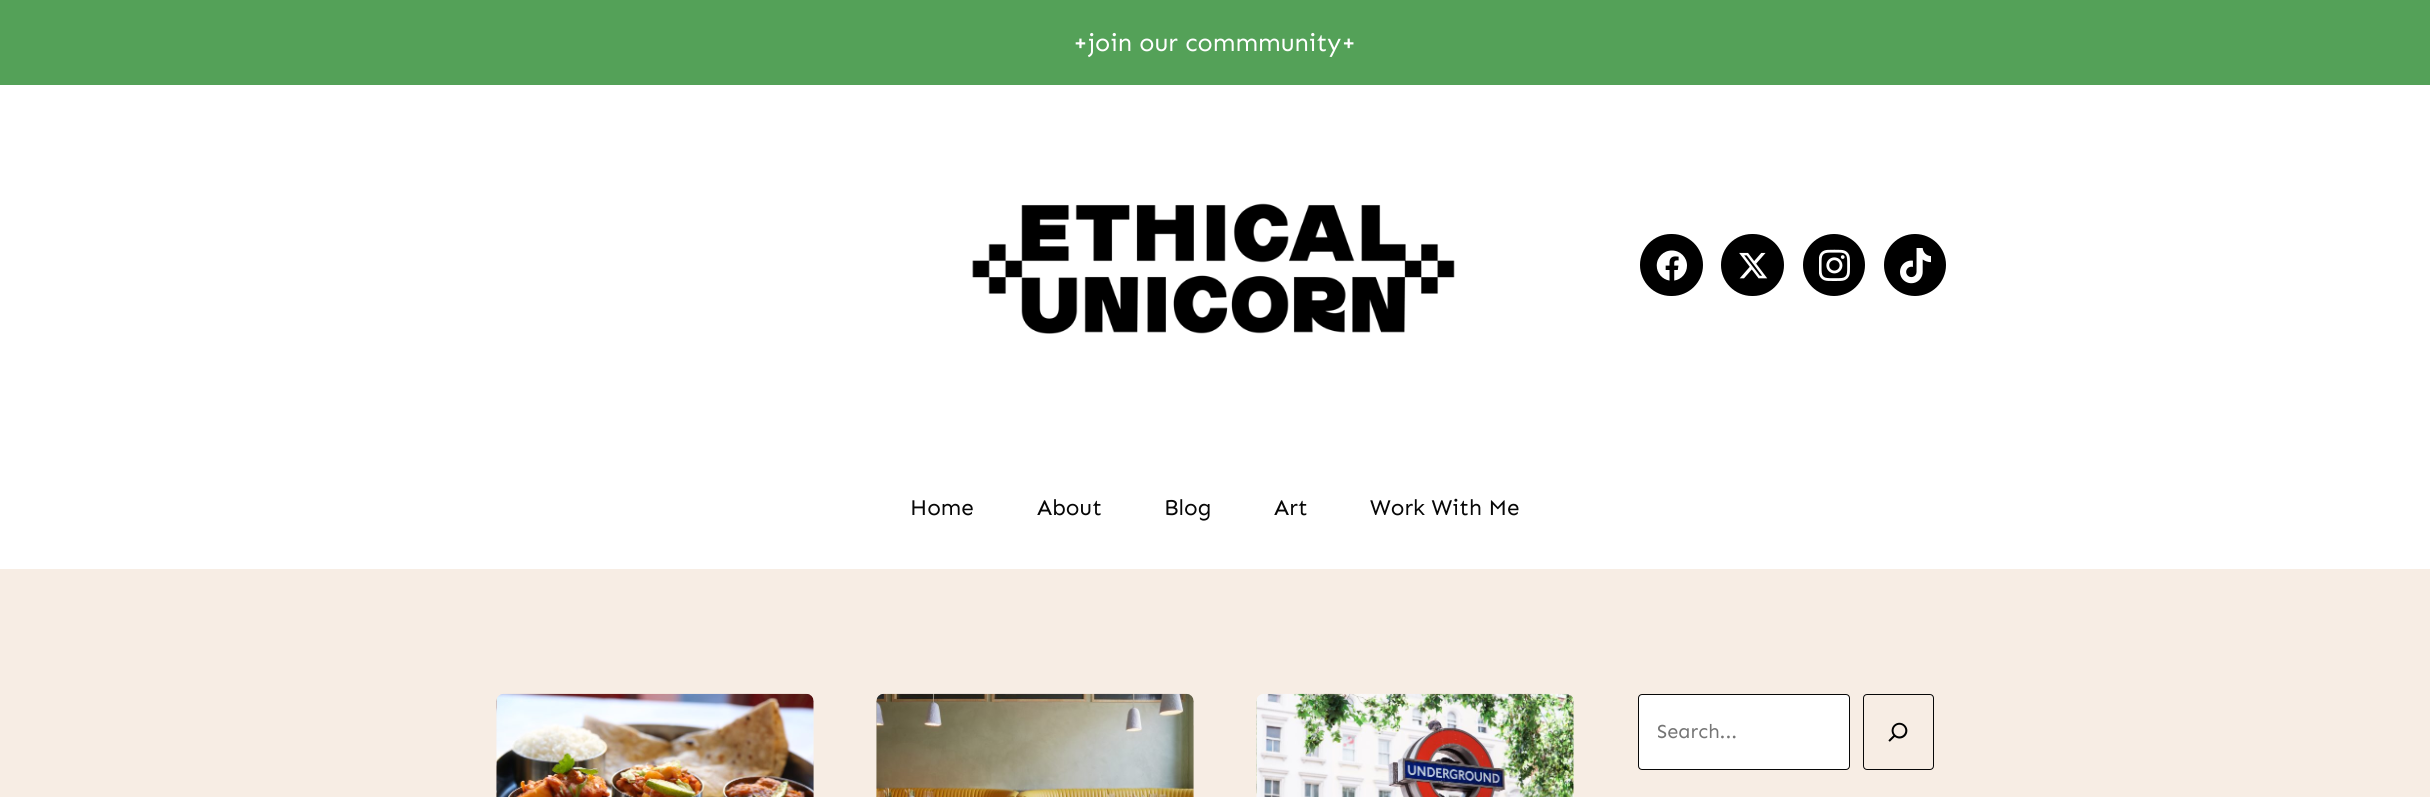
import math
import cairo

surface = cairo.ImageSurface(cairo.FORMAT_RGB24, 2430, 797)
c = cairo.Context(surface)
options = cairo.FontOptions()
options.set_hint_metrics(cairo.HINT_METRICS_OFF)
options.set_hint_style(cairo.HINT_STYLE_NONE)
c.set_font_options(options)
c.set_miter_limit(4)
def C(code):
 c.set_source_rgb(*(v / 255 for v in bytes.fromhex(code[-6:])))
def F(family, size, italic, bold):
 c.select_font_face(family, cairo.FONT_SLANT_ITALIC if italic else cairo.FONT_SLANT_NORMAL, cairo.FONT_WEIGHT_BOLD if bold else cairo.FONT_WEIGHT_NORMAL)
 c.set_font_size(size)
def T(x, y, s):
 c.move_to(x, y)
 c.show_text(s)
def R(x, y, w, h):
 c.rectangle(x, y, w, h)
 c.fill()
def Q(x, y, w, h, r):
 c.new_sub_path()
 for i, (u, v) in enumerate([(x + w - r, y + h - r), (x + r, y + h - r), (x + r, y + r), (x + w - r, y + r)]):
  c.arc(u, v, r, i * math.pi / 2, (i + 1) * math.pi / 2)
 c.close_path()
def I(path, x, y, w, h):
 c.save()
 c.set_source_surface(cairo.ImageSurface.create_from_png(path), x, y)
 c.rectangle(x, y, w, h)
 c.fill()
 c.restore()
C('f7ede4')
c.paint()
C('54a158')
R(0,0,2430,85)
F('Sen',25,0,0)
C('ffffff')
T(1073,51,'+join our commmunity+')
R(0,85,2430,484)
I('1.png',972,203,483,131)
C('000000')
Q(1640,234,63,62,31)
c.fill()
I('2.png',1656,250,31,31)
Q(1721,234,63,62,31)
c.fill()
I('3.png',1739,252,29,27)
c.arc(1834,265,31,0,2 * math.pi)
c.fill()
I('4.png',1819,249,31,32)
c.arc(1915,265,31,0,2 * math.pi)
c.fill()
I('5.png',1900,248,31,36)
F('Sen',22.5,0,0)
C('070707')
T(910,515,'Home')
T(1037,515,'About')
T(1164,515,'Blog')
T(1274,515,'Art')
T(1370,515,'Work With Me')
I('6.png',496,693,318,104)
I('7.png',876,693,318,104)
I('8.png',1256,693,318,104)
C('ffffff')
Q(1639,695,210,74,2.5)
c.fill()
Q(1638.5,694.5,211,75,3.5)
C('070707')
c.set_line_width(1)
c.stroke()
c.save()
c.rectangle(1658,719,153,24)
c.clip()
F('Sen',20,0,0)
C('757575')
T(1657,738,'Search...')
c.restore()
Q(1863.5,694.5,70,75,3.5)
c.stroke()
I('9.png',1888,722,20,20)
surface.write_to_png('o.png')
